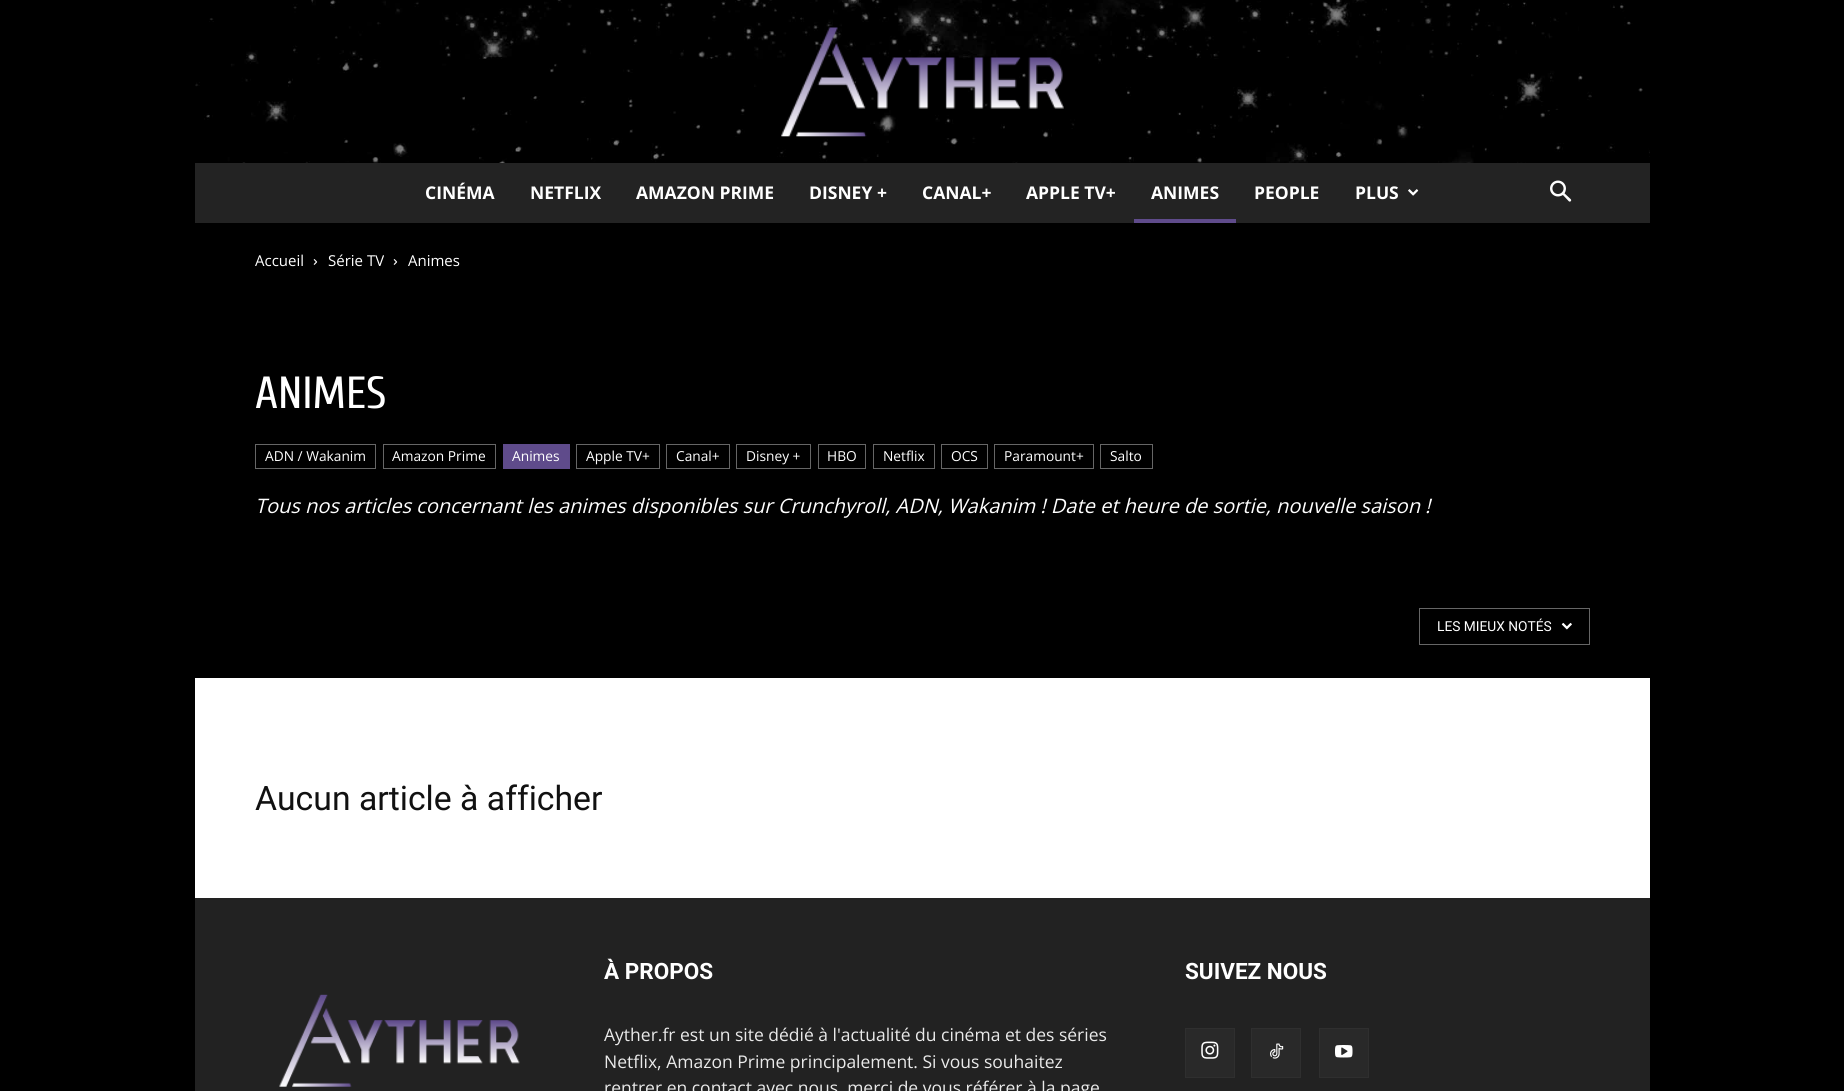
import math
import cairo

surface = cairo.ImageSurface(cairo.FORMAT_RGB24, 1844, 1091)
c = cairo.Context(surface)
options = cairo.FontOptions()
options.set_hint_metrics(cairo.HINT_METRICS_OFF)
options.set_hint_style(cairo.HINT_STYLE_NONE)
c.set_font_options(options)
c.set_miter_limit(4)
def C(code):
 c.set_source_rgb(*(v / 255 for v in bytes.fromhex(code[-6:])))
def F(family, size, italic, bold):
 c.select_font_face(family, cairo.FONT_SLANT_ITALIC if italic else cairo.FONT_SLANT_NORMAL, cairo.FONT_WEIGHT_BOLD if bold else cairo.FONT_WEIGHT_NORMAL)
 c.set_font_size(size)
def T(x, y, s):
 c.move_to(x, y)
 c.show_text(s)
def R(x, y, w, h):
 c.rectangle(x, y, w, h)
 c.fill()
def I(path, x, y, w, h):
 c.save()
 c.set_source_surface(cairo.ImageSurface.create_from_png(path), x, y)
 c.rectangle(x, y, w, h)
 c.fill()
 c.restore()
C('000000')
c.paint()
I('1.png',195,0,1455,163)
I('2.png',781,27,283,110)
C('232323')
R(195,163,1455,60)
F('Open Sans',17.5,0,1)
C('ffffff')
T(425,199,'CINÉMA')
T(530,199,'NETFLIX')
T(636,199,'AMAZON PRIME')
T(809,199,'DISNEY +')
T(922,199,'CANAL+')
T(1026,199,'APPLE TV+')
T(1151,199,'ANIMES')
C('5f4b8b')
R(1134,219,102,4)
C('ffffff')
T(1254,199,'PEOPLE')
T(1355,199,'PLUS')
I('3.png',1408,189,11,7)
I('4.png',1550,180,22,22)
F('Open Sans',15,0,0)
T(255,266,'Accueil')
I('5.png',313,259,5,6)
T(328,266,'Série TV')
I('5.png',393,259,5,6)
T(408,266,'Animes')
F('Cuprum',45,0,0)
T(255,408,'ANIMES')
c.rectangle(255.5,444.5,120,24)
C('666666')
c.set_line_width(1)
c.stroke()
F('Open Sans',13.75,0,0)
C('ffffff')
T(265,461,'ADN / Wakanim')
c.rectangle(383.5,444.5,112,24)
C('666666')
c.stroke()
C('ffffff')
T(392,461,'Amazon Prime')
C('5f4b8b')
R(503,444,67,25)
C('ffffff')
T(512,461,'Animes')
c.rectangle(576.5,444.5,83,24)
C('666666')
c.stroke()
C('ffffff')
T(586,461,'Apple TV+')
c.rectangle(666.5,444.5,63,24)
C('666666')
c.stroke()
C('ffffff')
T(676,461,'Canal+')
c.rectangle(736.5,444.5,74,24)
C('666666')
c.stroke()
C('ffffff')
T(746,461,'Disney +')
c.rectangle(818.5,444.5,47,24)
C('666666')
c.stroke()
C('ffffff')
T(827,461,'HBO')
c.rectangle(873.5,444.5,61,24)
C('666666')
c.stroke()
C('ffffff')
T(883,461,'Netflix')
c.rectangle(941.5,444.5,46,24)
C('666666')
c.stroke()
C('ffffff')
T(951,461,'OCS')
c.rectangle(994.5,444.5,99,24)
C('666666')
c.stroke()
C('ffffff')
T(1004,461,'Paramount+')
c.rectangle(1100.5,444.5,52,24)
C('666666')
c.stroke()
C('ffffff')
T(1110,461,'Salto')
F('Open Sans',20,1,0)
T(255,513,'Tous nos articles concernant les animes disponibles sur Crunchyroll, ADN, Wakanim ! Date et heure de sortie, nouvelle saison !')
c.rectangle(1419.5,608.5,170,36)
C('666666')
c.stroke()
F('Roboto',13.75,0,0)
C('ffffff')
T(1437,631,'LES MIEUX NOTÉS')
I('6.png',1561,622,11,8)
R(195,678,1455,220)
F('Roboto',33.75,0,0)
C('111111')
T(255,810,'Aucun article à afficher')
C('222222')
R(195,898,1455,193)
F('Roboto',22.5,0,1)
C('ffffff')
T(604,979,'À PROPOS')
F('Open Sans',17.5,0,0)
C('eaeaea')
T(604,1041,'Ayther.fr est un site dédié à l\'actualité du cinéma et des séries')
T(604,1068,'Netflix, Amazon Prime principalement. Si vous souhaitez')
T(604,1094,'rentrer en contact avec nous, merci de vous référer à la page')
F('Roboto',22.5,0,1)
C('ffffff')
T(1185,979,'SUIVEZ NOUS')
C('292929')
R(1186,1029,48,48)
I('7.png',1201,1041,18,18)
c.rectangle(1185.5,1028.5,49,49)
C('2f2f2f')
c.stroke()
C('292929')
R(1252,1029,48,48)
I('8.png',1270,1043,14,16)
c.rectangle(1251.5,1028.5,49,49)
C('2f2f2f')
c.stroke()
C('292929')
R(1320,1029,48,48)
I('9.png',1335,1045,18,13)
c.rectangle(1319.5,1028.5,49,49)
C('2f2f2f')
c.stroke()
I('10.png',279,994,241,93)
surface.write_to_png('o.png')
